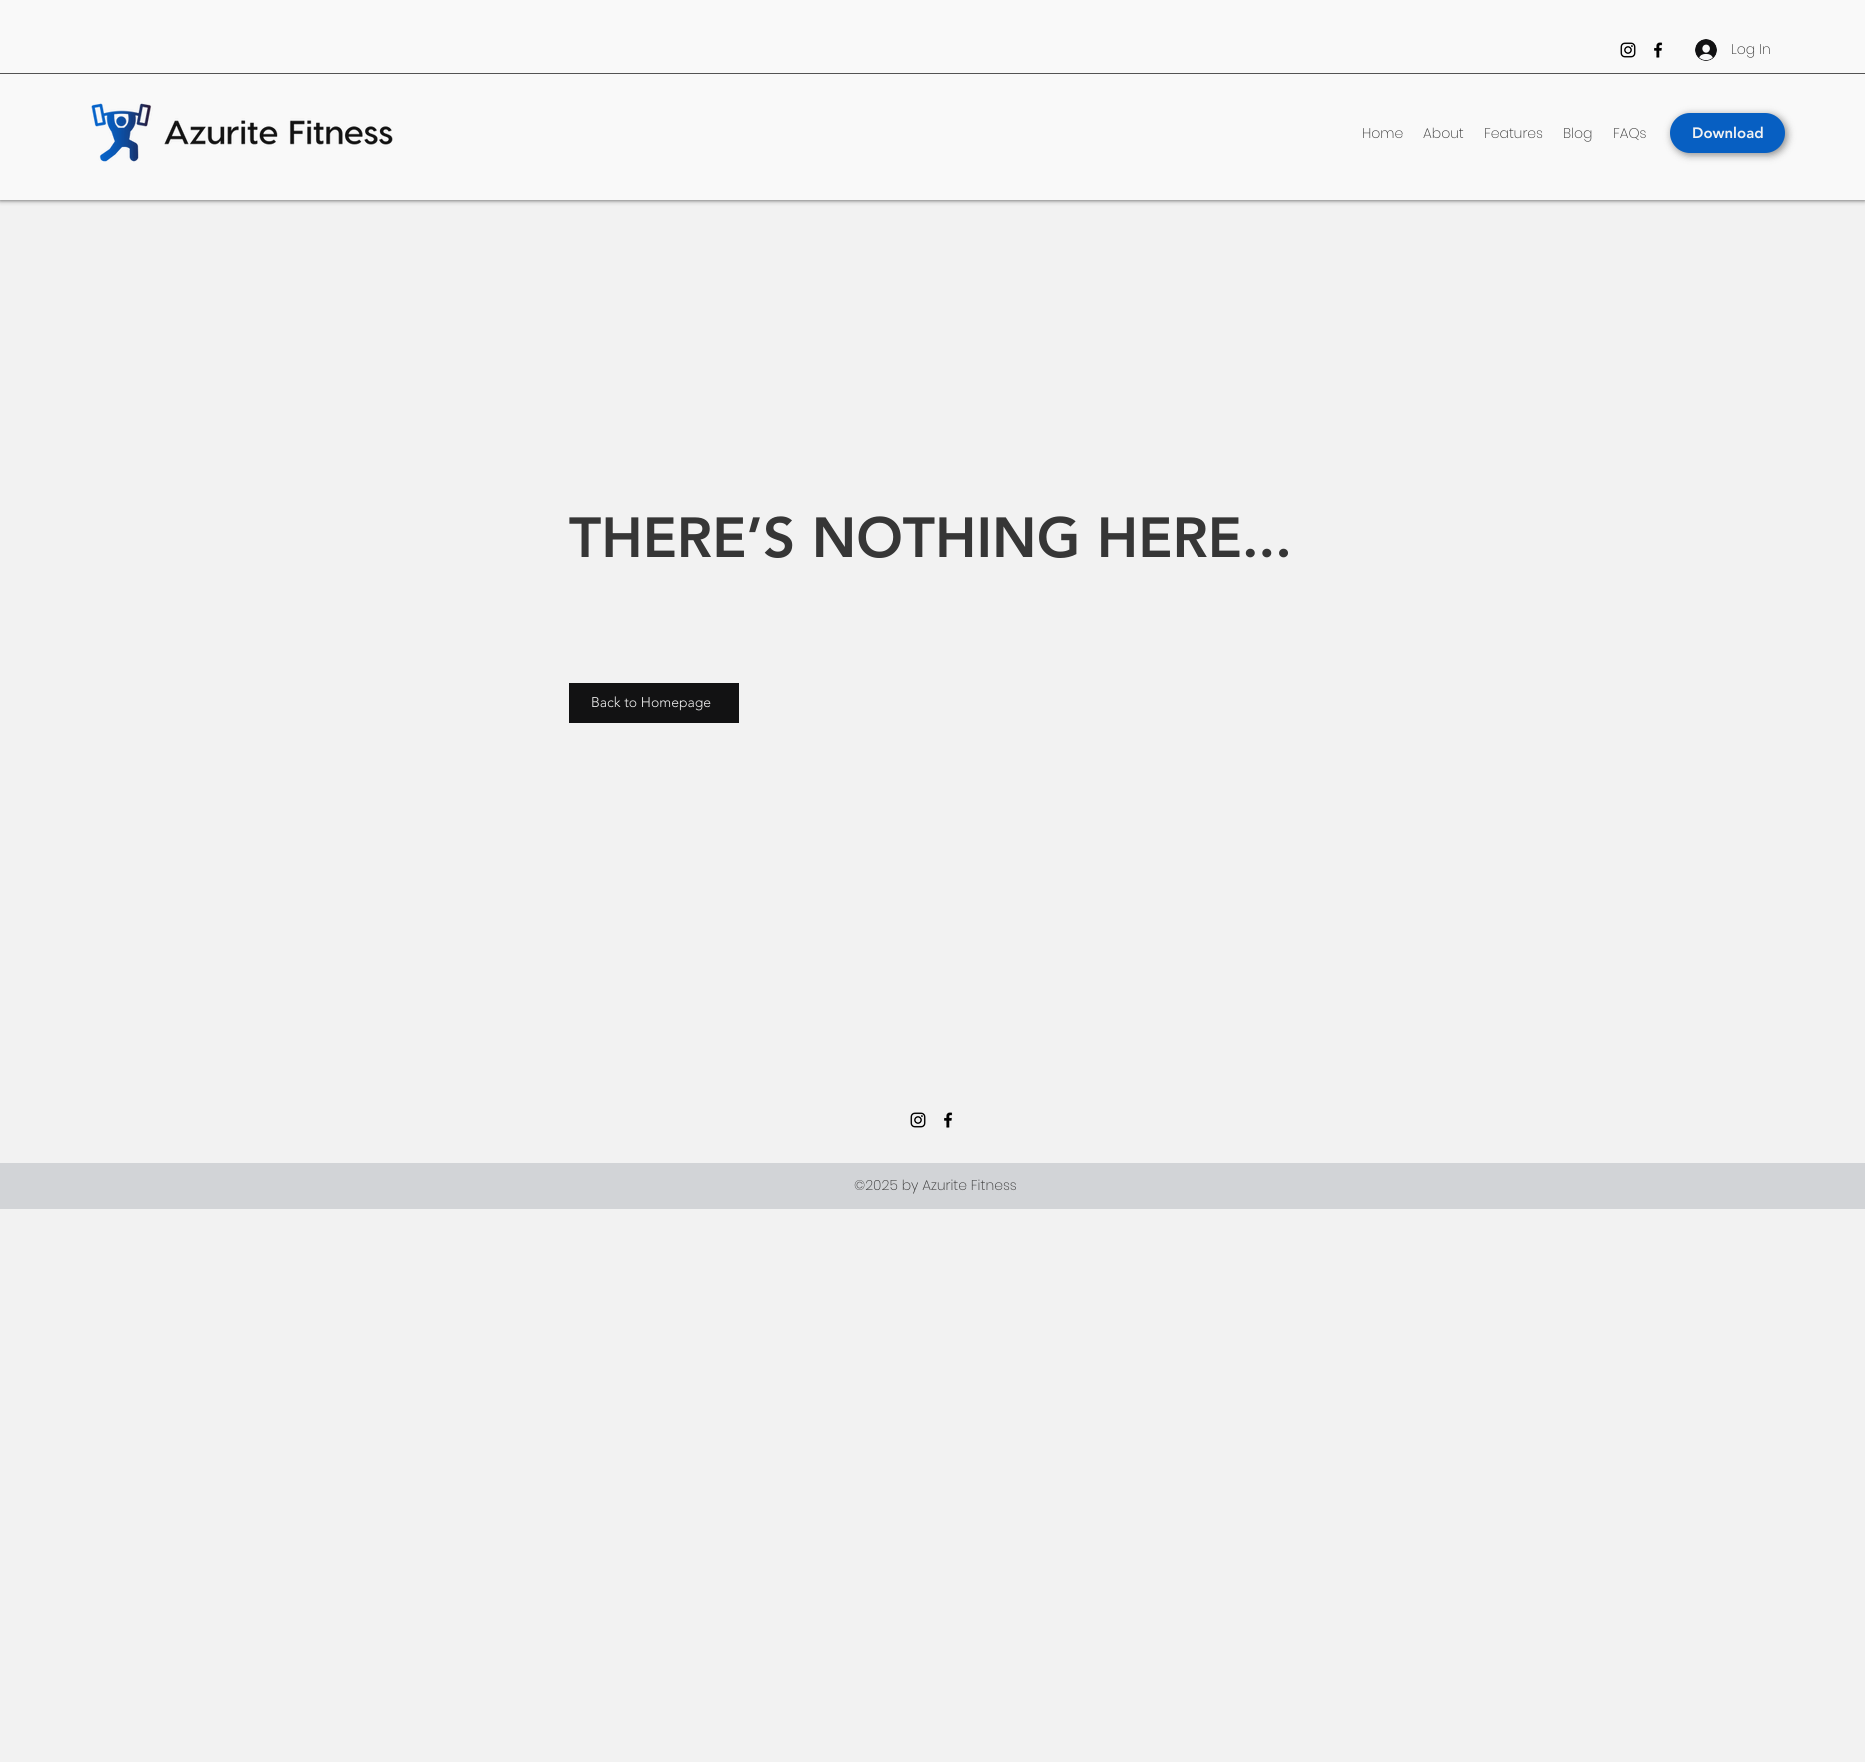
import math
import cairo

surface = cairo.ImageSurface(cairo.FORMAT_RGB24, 1865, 1762)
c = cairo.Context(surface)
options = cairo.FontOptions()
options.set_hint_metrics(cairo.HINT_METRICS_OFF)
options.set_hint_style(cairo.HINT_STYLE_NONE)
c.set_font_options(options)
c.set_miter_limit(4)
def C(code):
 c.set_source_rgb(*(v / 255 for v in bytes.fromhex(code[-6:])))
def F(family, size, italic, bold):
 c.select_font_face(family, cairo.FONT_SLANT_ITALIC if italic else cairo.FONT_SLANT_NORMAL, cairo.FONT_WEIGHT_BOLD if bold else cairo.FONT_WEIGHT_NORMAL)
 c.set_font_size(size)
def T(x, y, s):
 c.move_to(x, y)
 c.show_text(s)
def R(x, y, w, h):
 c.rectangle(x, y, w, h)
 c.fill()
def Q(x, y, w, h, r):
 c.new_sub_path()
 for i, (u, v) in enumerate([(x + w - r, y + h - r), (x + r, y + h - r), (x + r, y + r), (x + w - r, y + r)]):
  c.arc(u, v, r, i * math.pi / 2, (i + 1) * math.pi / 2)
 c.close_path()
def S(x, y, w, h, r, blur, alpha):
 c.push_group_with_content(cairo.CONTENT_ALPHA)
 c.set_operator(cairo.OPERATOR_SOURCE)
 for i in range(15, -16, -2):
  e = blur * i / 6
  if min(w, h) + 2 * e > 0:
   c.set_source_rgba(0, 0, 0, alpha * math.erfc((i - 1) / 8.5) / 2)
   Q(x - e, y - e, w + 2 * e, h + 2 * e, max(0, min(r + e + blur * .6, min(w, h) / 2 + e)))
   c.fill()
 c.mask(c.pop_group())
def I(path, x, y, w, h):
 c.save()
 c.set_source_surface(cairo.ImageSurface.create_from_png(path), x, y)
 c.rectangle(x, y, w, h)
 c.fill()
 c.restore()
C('f2f2f2')
c.paint()
C('000000')
S(0,0,1865,200,0,2.5,.7)
C('f9f9f9')
R(0,0,1865,200)
I('1.png',1620,42,16,16)
I('2.png',1654,42,9,16)
I('3.png',1695,39,22,22)
F('Poppins ExtraLight',14,0,0)
C('363636')
T(1731,54,'Log In')
C('535353')
R(0,73,1865,1)
I('4.png',91,103,302,59)
C('363636')
T(1362,138,'Home')
T(1423,138,'About')
T(1484,138,'Features')
T(1563,138,'Blog')
T(1613,138,'FAQs')
C('000000')
S(1672,115,115,40,20,4,.45)
C('075fc2')
Q(1670,113,115,40,20)
c.fill()
F('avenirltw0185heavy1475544 Black',15,0,0)
C('f2f2f2')
T(1692,138,'Download')
F('avenirltw0185heavy1475544 Black',56,0,0)
C('363636')
T(569,557,'THERE’S NOTHING HERE...')
C('121213')
R(569,683,170,40)
F('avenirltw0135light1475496 Light',14,0,0)
C('f2f2f2')
T(591,707,'Back to Homepage')
I('5.png',910,1112,16,16)
I('6.png',944,1112,9,16)
C('d2d4d7')
R(0,1163,1865,46)
F('Poppins ExtraLight',14,0,0)
C('363636')
T(854,1190,'©2025 by Azurite Fitness')
surface.write_to_png('o.png')
